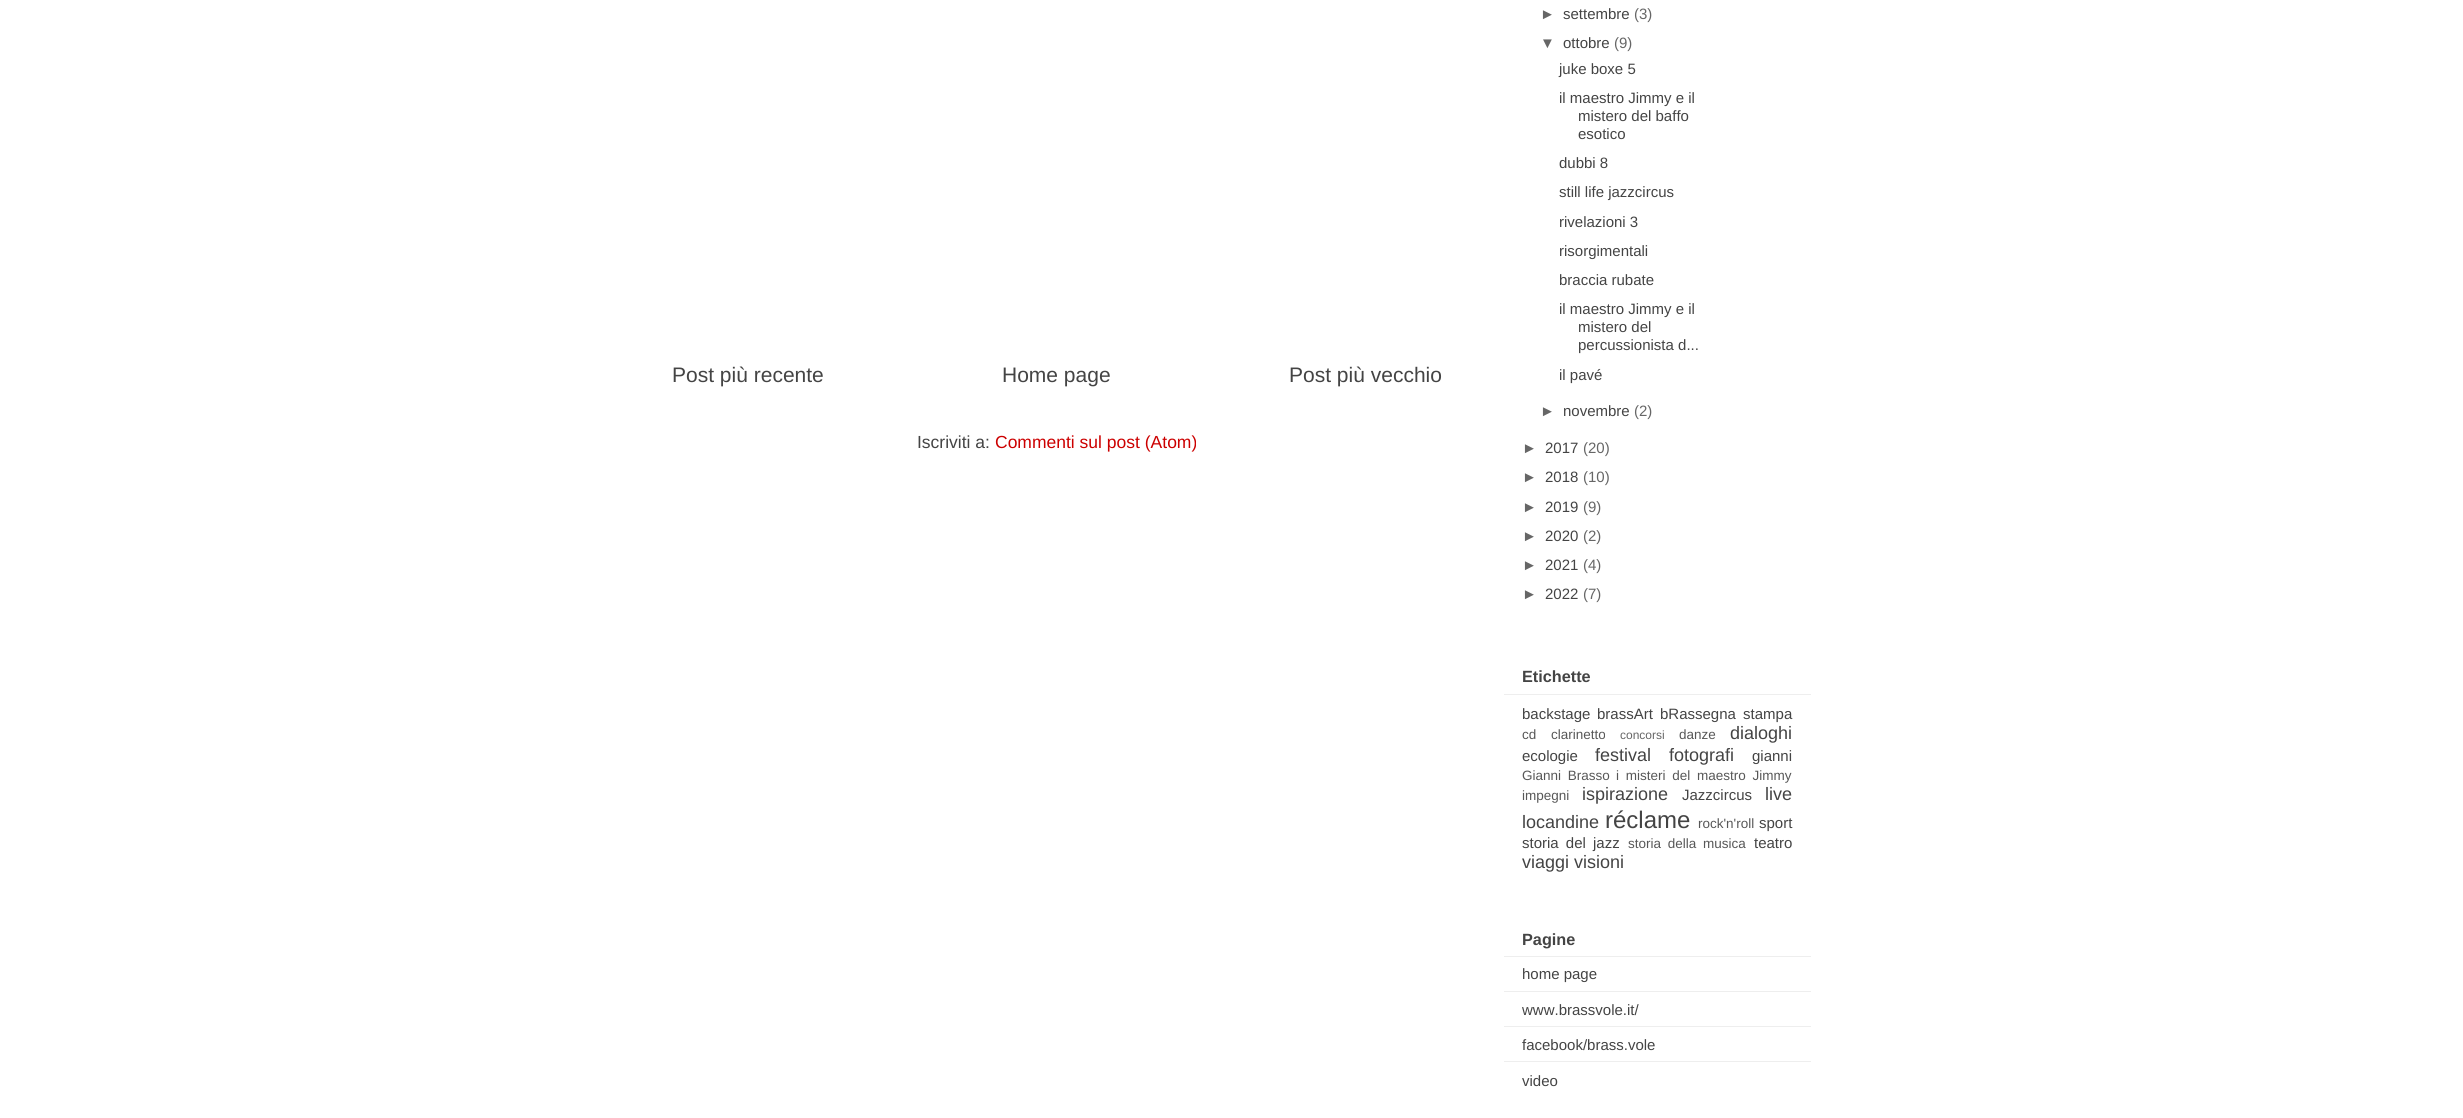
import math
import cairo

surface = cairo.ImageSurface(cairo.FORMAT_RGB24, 2463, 1118)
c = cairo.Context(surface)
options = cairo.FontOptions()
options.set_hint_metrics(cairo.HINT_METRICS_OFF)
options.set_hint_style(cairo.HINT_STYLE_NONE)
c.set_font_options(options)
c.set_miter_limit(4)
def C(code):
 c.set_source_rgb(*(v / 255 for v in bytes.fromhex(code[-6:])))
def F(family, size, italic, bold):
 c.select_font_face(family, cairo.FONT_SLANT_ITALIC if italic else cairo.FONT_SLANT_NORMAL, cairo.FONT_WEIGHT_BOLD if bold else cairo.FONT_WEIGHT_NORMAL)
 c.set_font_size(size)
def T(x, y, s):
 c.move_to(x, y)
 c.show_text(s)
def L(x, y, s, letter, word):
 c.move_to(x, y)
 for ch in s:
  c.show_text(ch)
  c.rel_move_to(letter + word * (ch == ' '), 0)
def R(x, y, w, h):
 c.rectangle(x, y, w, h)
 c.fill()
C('ffffff')
c.paint()
F('Liberation Sans',21,0,0)
C('444444')
T(672,382,'Post più recente')
T(1002,382,'Home page')
T(1289,382,'Post più vecchio')
F('Liberation Sans',17.5,0,0)
T(917,448,'Iscriviti a:')
C('cc0000')
T(995,448,'Commenti sul post (Atom)')
F('Liberation Sans',15,0,0)
C('666666')
T(1540,19,'►')
C('444444')
T(1563,19,'settembre')
C('666666')
T(1634,19,'(3)')
T(1540,48,'▼')
C('444444')
T(1563,48,'ottobre')
C('666666')
T(1614,48,'(9)')
C('444444')
T(1559,74,'juke boxe 5')
T(1559,103,'il maestro Jimmy e il')
T(1578,121,'mistero del baffo')
T(1578,139,'esotico')
T(1559,168,'dubbi 8')
T(1559,197,'still life jazzcircus')
T(1559,227,'rivelazioni 3')
T(1559,256,'risorgimentali')
T(1559,285,'braccia rubate')
T(1559,314,'il maestro Jimmy e il')
T(1578,332,'mistero del')
T(1578,350,'percussionista d...')
T(1559,380,'il pavé')
C('666666')
T(1540,416,'►')
C('444444')
T(1563,416,'novembre')
C('666666')
T(1634,416,'(2)')
T(1522,453,'►')
C('444444')
T(1545,453,'2017')
C('666666')
T(1583,453,'(20)')
T(1522,482,'►')
C('444444')
T(1545,482,'2018')
C('666666')
T(1583,482,'(10)')
T(1522,512,'►')
C('444444')
T(1545,512,'2019')
C('666666')
T(1583,512,'(9)')
T(1522,541,'►')
C('444444')
T(1545,541,'2020')
C('666666')
T(1583,541,'(2)')
T(1522,570,'►')
C('444444')
T(1545,570,'2021')
C('666666')
T(1583,570,'(4)')
T(1522,599,'►')
C('444444')
T(1545,599,'2022')
C('666666')
T(1583,599,'(7)')
C('eeeeee')
R(1504,694,307,1)
F('Liberation Sans',16.25,0,1)
C('444444')
T(1522,682,'Etichette')
F('Liberation Sans',15,0,0)
T(1522,719,'backstage')
T(1597,719,'brassArt')
L(1660,719,'bRassegna stampa',0,3)
F('Liberation Sans',13.5,0,0)
C('575757')
T(1522,739,'cd')
T(1551,739,'clarinetto')
F('Liberation Sans',12,0,0)
C('666666')
T(1620,739,'concorsi')
F('Liberation Sans',13.5,0,0)
C('575757')
T(1679,739,'danze')
F('Liberation Sans',18,0,0)
C('444444')
T(1730,739,'dialoghi')
F('Liberation Sans',15,0,0)
T(1522,761,'ecologie')
F('Liberation Sans',18,0,0)
T(1595,761,'festival')
T(1669,761,'fotografi')
F('Liberation Sans',15,0,0)
T(1752,761,'gianni')
F('Liberation Sans',13.5,0,0)
C('575757')
L(1522,780,'Gianni Brasso',0,3)
L(1616,780,'i misteri del maestro Jimmy',0,3)
T(1522,800,'impegni')
F('Liberation Sans',18,0,0)
C('444444')
T(1582,800,'ispirazione')
F('Liberation Sans',15,0,0)
T(1682,800,'Jazzcircus')
F('Liberation Sans',18,0,0)
T(1765,800,'live')
T(1522,828,'locandine')
F('Liberation Sans',24,0,0)
T(1605,828,'réclame')
F('Liberation Sans',13.5,0,0)
C('575757')
T(1698,828,'rock\'n\'roll')
F('Liberation Sans',15,0,0)
C('444444')
T(1759,828,'sport')
L(1522,848,'storia del jazz',0,3)
F('Liberation Sans',13.5,0,0)
C('575757')
L(1628,848,'storia della musica',0,3)
F('Liberation Sans',15,0,0)
C('444444')
T(1754,848,'teatro')
F('Liberation Sans',18,0,0)
T(1522,868,'viaggi visioni')
C('eeeeee')
R(1504,956,307,1)
F('Liberation Sans',16.25,0,1)
C('444444')
T(1522,945,'Pagine')
C('eeeeee')
R(1504,991,307,1)
F('Liberation Sans',15,0,0)
C('444444')
T(1522,979,'home page')
C('eeeeee')
R(1504,1026,307,1)
C('444444')
T(1522,1015,'www.brassvole.it/')
C('eeeeee')
R(1504,1061,307,1)
C('444444')
T(1522,1050,'facebook/brass.vole')
T(1522,1086,'video')
surface.write_to_png('o.png')
